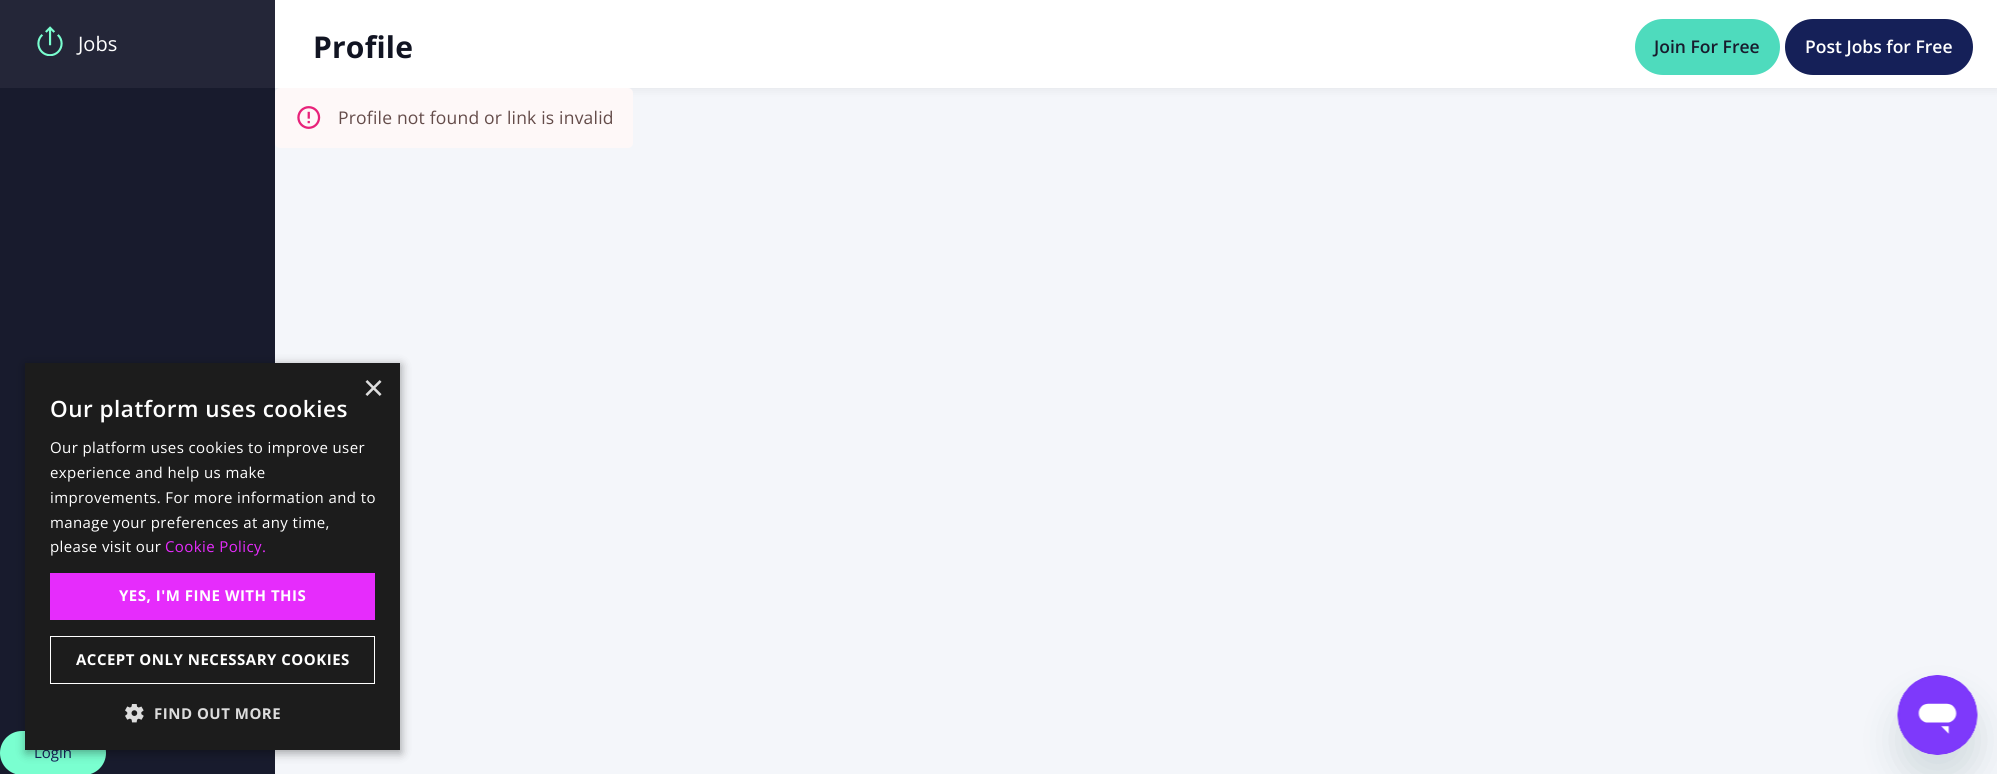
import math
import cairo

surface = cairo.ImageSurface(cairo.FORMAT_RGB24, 1997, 774)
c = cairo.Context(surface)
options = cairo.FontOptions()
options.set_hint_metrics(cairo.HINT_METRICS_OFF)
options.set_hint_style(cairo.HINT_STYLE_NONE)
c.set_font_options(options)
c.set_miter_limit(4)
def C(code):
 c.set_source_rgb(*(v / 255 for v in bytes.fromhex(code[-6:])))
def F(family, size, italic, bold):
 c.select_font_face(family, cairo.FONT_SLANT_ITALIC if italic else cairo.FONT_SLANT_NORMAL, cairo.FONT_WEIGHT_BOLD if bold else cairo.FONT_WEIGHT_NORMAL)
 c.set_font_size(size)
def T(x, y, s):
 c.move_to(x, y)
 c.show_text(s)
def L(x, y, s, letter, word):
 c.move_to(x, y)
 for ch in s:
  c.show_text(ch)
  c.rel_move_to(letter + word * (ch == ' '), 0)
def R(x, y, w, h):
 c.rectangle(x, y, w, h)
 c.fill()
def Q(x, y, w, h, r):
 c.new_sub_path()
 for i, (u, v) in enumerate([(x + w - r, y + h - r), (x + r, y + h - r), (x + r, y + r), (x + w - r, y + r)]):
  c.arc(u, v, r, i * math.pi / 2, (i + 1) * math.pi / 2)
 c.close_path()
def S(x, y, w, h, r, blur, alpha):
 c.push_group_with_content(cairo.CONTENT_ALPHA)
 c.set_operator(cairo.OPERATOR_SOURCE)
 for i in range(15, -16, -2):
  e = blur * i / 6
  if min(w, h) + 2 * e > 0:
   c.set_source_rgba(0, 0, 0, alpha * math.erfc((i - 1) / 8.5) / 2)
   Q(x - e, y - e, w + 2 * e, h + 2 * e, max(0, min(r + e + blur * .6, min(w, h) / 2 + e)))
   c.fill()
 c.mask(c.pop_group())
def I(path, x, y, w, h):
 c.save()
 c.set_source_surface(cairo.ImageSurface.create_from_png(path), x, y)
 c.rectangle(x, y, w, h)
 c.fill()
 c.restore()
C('f4f6fa')
c.paint()
C('181b2d')
R(0,88,275,686)
C('000000')
S(275,0,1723,88,0,6,.08)
C('242638')
R(0,0,275,88)
I('1.png',37,26,26,30)
F('Open Sans',20,0,0)
C('ffffff')
T(78,51,'Jobs')
C('7affd0')
Q(0,731,106,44,22)
c.fill()
F('Open Sans',15,0,0)
C('152058')
T(34,758,'Login')
C('ffffff')
R(275,0,1722,88)
F('Open Sans',30,0,1)
C('111422')
L(313,58,'Profile',.2,0)
C('4edbbd')
Q(1635,19,145,56,28)
c.fill()
F('Open Sans SemiBold',17.5,0,0)
C('181b2d')
T(1654,53,'Join For Free')
C('152058')
Q(1785,19,188,56,28)
c.fill()
C('ffffff')
T(1805,53,'Post Jobs for Free')
C('fef8f8')
Q(275,88,358,60,5)
c.fill()
I('2.png',297,106,24,23)
F('Open Sans',17.5,0,0)
C('644c4a')
L(338,124,'Profile not found or link is invalid',.2,0)
C('000000')
S(26,365,375,388,0,5,.35)
C('1c1c1c')
R(25,363,375,387)
F('Liberation Sans',36,0,0)
C('dddddd')
T(363,400,'×')
F('Open Sans SemiBold',22.5,0,0)
C('ffffff')
L(50,417,'Our platform uses cookies',.5,0)
F('Open Sans',15,0,0)
L(50,453,'Our platform uses cookies to improve user',.4,0)
L(50,478,'experience and help us make',.4,0)
L(50,503,'improvements. For more information and to',.4,0)
L(50,528,'manage your preferences at any time,',.4,0)
L(50,552,'please visit our',.4,0)
C('e62cfc')
L(165,552,'Cookie Policy.',.4,0)
R(50,573,325,47)
F('Open Sans',15,0,1)
C('ffffff')
L(119,601,'YES, I\'M FINE WITH THIS',.5,0)
c.rectangle(50.5,636.5,324,47)
c.set_line_width(1)
c.stroke()
L(76,665,'ACCEPT ONLY NECESSARY COOKIES',.5,0)
I('3.png',125,704,19,19)
C('dddddd')
L(154,719,'FIND OUT MORE',.5,0)
C('17494d')
S(1898,700,80,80,40,19,.15)
I('4.png',1897,675,81,80)
surface.write_to_png('o.png')
